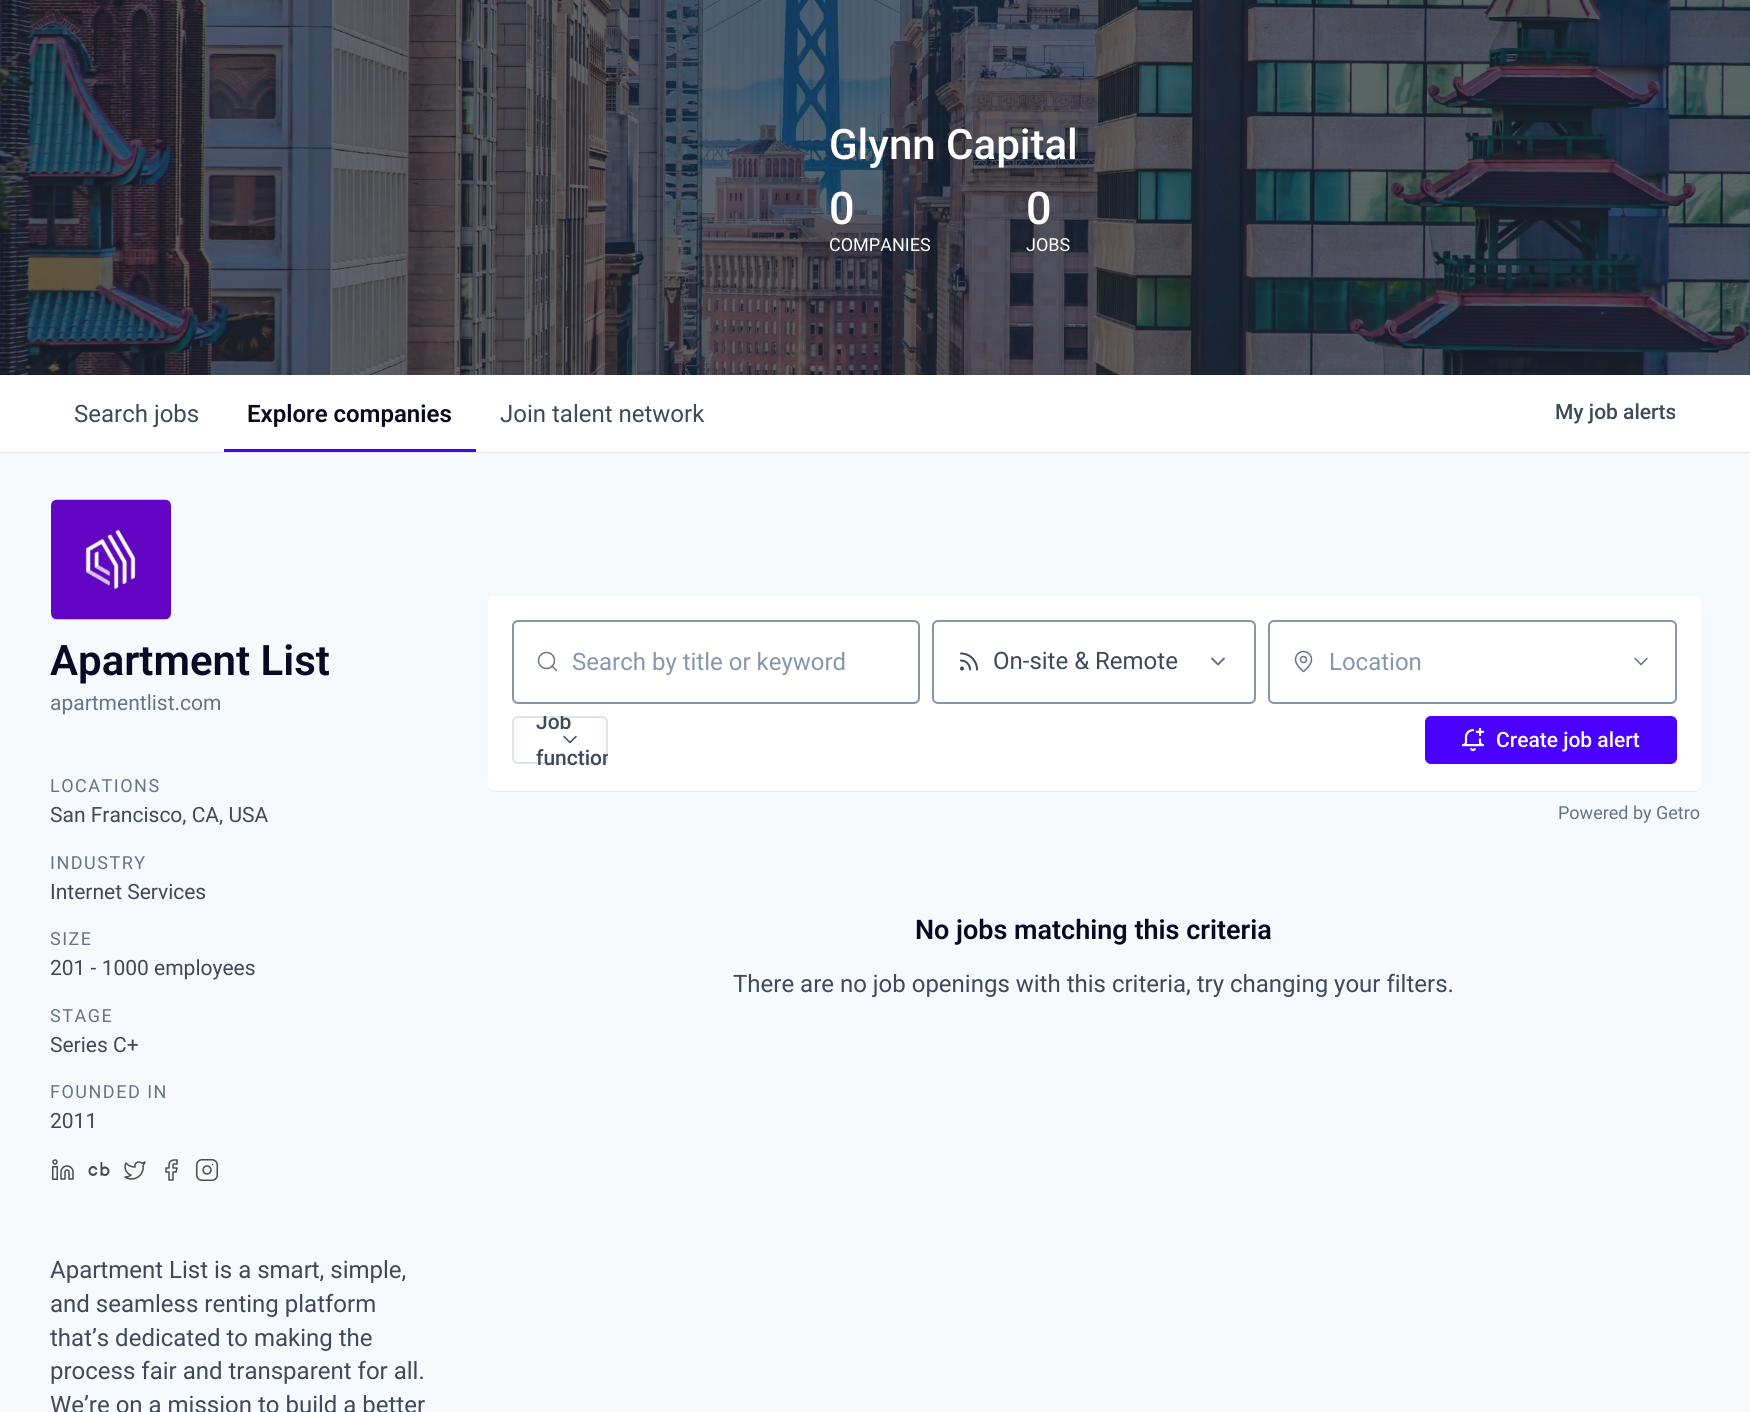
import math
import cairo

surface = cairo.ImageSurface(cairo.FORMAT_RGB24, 1750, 1412)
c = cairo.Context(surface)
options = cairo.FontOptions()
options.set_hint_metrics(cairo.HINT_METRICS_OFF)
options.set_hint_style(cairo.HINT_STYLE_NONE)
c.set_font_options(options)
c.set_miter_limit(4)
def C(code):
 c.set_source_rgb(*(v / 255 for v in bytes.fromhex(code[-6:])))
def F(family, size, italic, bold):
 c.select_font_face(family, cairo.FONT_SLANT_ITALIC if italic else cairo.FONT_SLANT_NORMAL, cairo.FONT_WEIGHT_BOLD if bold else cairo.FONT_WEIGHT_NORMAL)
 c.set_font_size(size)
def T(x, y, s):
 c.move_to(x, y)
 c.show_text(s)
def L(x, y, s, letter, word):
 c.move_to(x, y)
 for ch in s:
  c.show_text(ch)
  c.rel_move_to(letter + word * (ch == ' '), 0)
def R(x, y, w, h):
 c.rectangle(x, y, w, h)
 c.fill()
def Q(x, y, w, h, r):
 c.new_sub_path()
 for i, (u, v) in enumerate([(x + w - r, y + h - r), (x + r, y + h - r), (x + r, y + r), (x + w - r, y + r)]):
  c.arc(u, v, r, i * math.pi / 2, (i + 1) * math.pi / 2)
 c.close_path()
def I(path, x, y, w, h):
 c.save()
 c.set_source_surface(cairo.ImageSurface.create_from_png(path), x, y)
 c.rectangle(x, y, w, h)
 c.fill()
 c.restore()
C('f7fafc')
c.paint()
I('1.png',0,0,1750,375)
F('Roboto Medium',42,0,0)
C('ffffff')
T(829,159,'Glynn Capital')
F('Roboto Medium',45,0,0)
T(829,224,'0')
F('Roboto',18,0,0)
T(829,251,'COMPANIES')
F('Roboto Medium',45,0,0)
T(1026,224,'0')
F('Roboto',18,0,0)
T(1026,251,'JOBS')
C('e5e5e5')
c.new_path()
c.move_to(0,452)
c.line_to(0,453)
c.line_to(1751,453)
c.line_to(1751,377)
c.line_to(1750,377)
c.line_to(1750,452)
c.close_path()
c.fill()
C('ffffff')
R(0,375,1750,77)
F('Roboto',24,0,0)
C('3f495a')
T(74,422,'Search jobs')
F('Roboto SemiBold',24,0,0)
C('090925')
T(247,422,'Explore companies')
C('4900ff')
R(224,449,252,3)
F('Roboto',24,0,0)
C('3f495a')
T(500,422,'Join talent network')
F('Roboto Medium',21,0,0)
T(1555,419,'My job alerts')
I('2.png',51,499,120,121)
F('Roboto SemiBold',42,0,0)
C('090925')
T(50,675,'Apartment List')
F('Roboto',21,0,0)
C('67738b')
T(50,710,'apartmentlist.com')
F('Roboto',18,0,0)
L(50,792,'LOCATIONS',1.5,0)
F('Roboto',21,0,0)
C('3f495a')
T(50,822,'San Francisco, CA, USA')
F('Roboto',18,0,0)
C('67738b')
L(50,869,'INDUSTRY',1.5,0)
F('Roboto',21,0,0)
C('3f495a')
T(50,899,'Internet Services')
F('Roboto',18,0,0)
C('67738b')
L(50,945,'SIZE',1.5,0)
F('Roboto',21,0,0)
C('3f495a')
T(50,975,'201 - 1000 employees')
F('Roboto',18,0,0)
C('67738b')
L(50,1022,'STAGE',1.5,0)
F('Roboto',21,0,0)
C('3f495a')
T(50,1052,'Series C+')
F('Roboto',18,0,0)
C('67738b')
L(50,1098,'FOUNDED IN',1.5,0)
F('Roboto',21,0,0)
C('3f495a')
T(50,1128,'2011')
I('3.png',52,1159,22,21)
I('4.png',88,1162,22,14)
I('5.png',124,1161,22,19)
I('6.png',165,1159,13,22)
I('7.png',196,1159,22,22)
F('Roboto',24,0,0)
T(50,1278,'Apartment List is a smart, simple,')
T(50,1312,'and seamless renting platform')
T(50,1346,'that’s dedicated to making the')
T(50,1379,'process fair and transparent for all.')
T(50,1413,'We’re on a mission to build a better')
C('e8ebed')
c.new_path()
c.move_to(488,787)
c.curve_to(489,790,491,792,494,792)
c.line_to(1695,792)
c.curve_to(1698,792,1701,789,1701,786)
c.line_to(1701,784)
c.curve_to(1701,788,1698,790,1695,790)
c.line_to(494,790)
c.curve_to(491,790,489,789,488,787)
c.close_path()
c.fill()
C('ffffff')
Q(488,596,1213,195,6)
c.fill()
Q(513,621,406,82,5)
C('8797ab')
c.stroke()
c.arc(546.5,660.5,8,0,2 * math.pi)
C('67738b')
c.set_line_width(1.5)
c.stroke()
c.new_path()
c.move_to(556.5,670.5)
c.line_to(552,666)
c.set_line_cap(cairo.LINE_CAP_ROUND)
c.set_line_join(cairo.LINE_JOIN_ROUND)
c.stroke()
C('8797ab')
T(572,670,'Search by title or keyword')
Q(933,621,322,82,5)
c.set_line_width(2)
c.set_line_cap(cairo.LINE_CAP_BUTT)
c.set_line_join(cairo.LINE_JOIN_MITER)
c.stroke()
I('8.png',960,652,18,19)
C('3f495a')
T(993,669,'On-site & Remote')
c.new_path()
c.move_to(1212,658.5)
c.line_to(1218,664.5)
c.line_to(1224,658.5)
C('67738b')
c.set_line_cap(cairo.LINE_CAP_ROUND)
c.set_line_join(cairo.LINE_JOIN_ROUND)
c.stroke()
Q(1269,621,407,82,5)
C('8797ab')
c.set_line_cap(cairo.LINE_CAP_BUTT)
c.set_line_join(cairo.LINE_JOIN_MITER)
c.stroke()
I('9.png',1294,650,19,23)
T(1329,670,'Location')
c.new_path()
c.move_to(1635,658.5)
c.line_to(1641,664.5)
c.line_to(1647,658.5)
C('67738b')
c.set_line_width(1.5)
c.set_line_cap(cairo.LINE_CAP_ROUND)
c.set_line_join(cairo.LINE_JOIN_ROUND)
c.stroke()
Q(513,717,94,46,5)
C('dee4ed')
c.set_line_width(2)
c.set_line_cap(cairo.LINE_CAP_BUTT)
c.set_line_join(cairo.LINE_JOIN_MITER)
c.stroke()
c.save()
c.rectangle(512,716,96,51)
c.clip()
F('Roboto Medium',21,0,0)
C('3f495a')
T(536,729,'Job')
T(536,765,'function')
c.restore()
c.new_path()
c.move_to(564,736.5)
c.line_to(570,742.5)
c.line_to(576,736.5)
C('3f495a')
c.set_line_width(1.5)
c.set_line_cap(cairo.LINE_CAP_ROUND)
c.set_line_join(cairo.LINE_JOIN_ROUND)
c.stroke()
C('4900ff')
Q(1426,717,250,46,5)
c.fill_preserve()
c.set_line_width(2)
c.set_line_cap(cairo.LINE_CAP_BUTT)
c.set_line_join(cairo.LINE_JOIN_MITER)
c.stroke()
I('10.png',1461,728,24,24)
F('Roboto Medium',21,0,0)
C('ffffff')
T(1496,747,'Create job alert')
F('Roboto',18,0,0)
C('67738b')
T(1558,819,'Powered by Getro')
F('Roboto SemiBold',27,0,0)
C('090925')
T(915,939,'No jobs matching this criteria')
F('Roboto',24,0,0)
C('3f495a')
T(733,992,'There are no job openings with this criteria, try changing your filters.')
surface.write_to_png('o.png')
